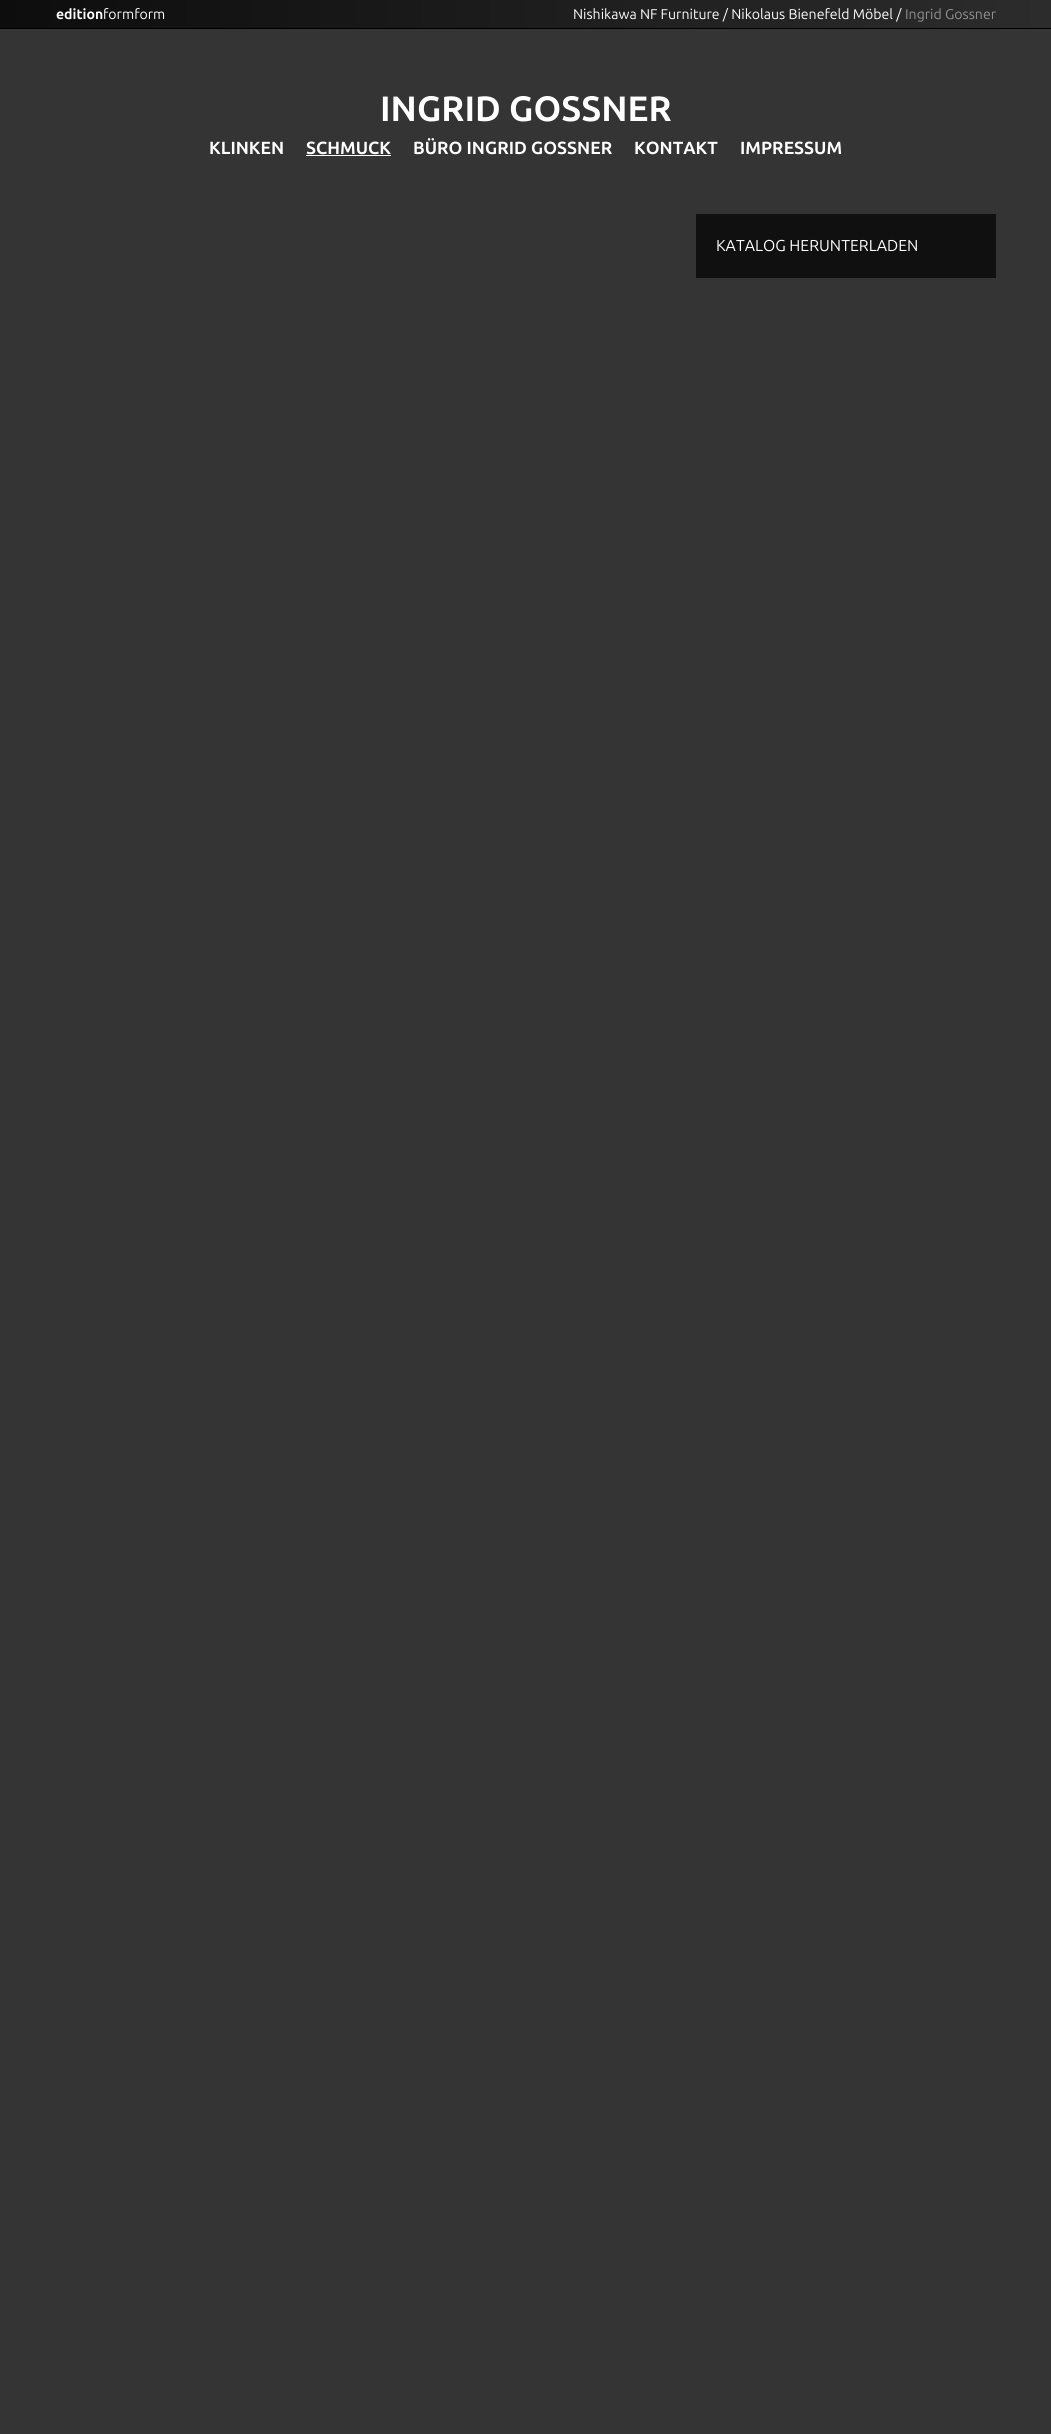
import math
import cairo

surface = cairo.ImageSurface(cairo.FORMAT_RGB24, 1051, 2434)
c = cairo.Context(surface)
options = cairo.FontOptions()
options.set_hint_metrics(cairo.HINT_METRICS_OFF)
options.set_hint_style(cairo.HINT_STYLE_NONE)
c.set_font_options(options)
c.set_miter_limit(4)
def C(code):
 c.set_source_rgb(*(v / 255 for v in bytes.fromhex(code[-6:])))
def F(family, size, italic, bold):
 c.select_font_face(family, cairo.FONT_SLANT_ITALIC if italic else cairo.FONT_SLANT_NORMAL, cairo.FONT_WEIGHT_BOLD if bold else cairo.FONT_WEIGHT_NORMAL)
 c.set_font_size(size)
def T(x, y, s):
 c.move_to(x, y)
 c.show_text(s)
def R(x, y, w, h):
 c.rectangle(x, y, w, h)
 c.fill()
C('343434')
c.paint()
gradient = cairo.LinearGradient(0,14,1051,14)
gradient.add_color_stop_rgba(0,0.051,0.051,0.051,1)
gradient.add_color_stop_rgba(1,0.173,0.173,0.173,1)
c.set_source(gradient)
R(0,0,1051,28)
C('000000')
R(0,28,1051,1)
F('Ubuntu',14.1,0,1)
C('ffffff')
T(56,19,'edition')
F('Ubuntu',14.1,0,0)
T(103,19,'formform')
T(573,19,'Nishikawa NF Furniture / Nikolaus Bienefeld Möbel /')
C('919191')
T(905,19,'Ingrid Gossner')
F('Ubuntu',35.25,0,1)
C('ffffff')
T(380,121,'INGRID GOSSNER')
F('Ubuntu',17.6,0,1)
T(209,154,'KLINKEN')
T(306,154,'SCHMUCK')
R(306,155,85,1)
T(413,154,'BÜRO INGRID GOSSNER')
T(634,154,'KONTAKT')
T(740,154,'IMPRESSUM')
C('101010')
R(696,214,300,64)
F('Ubuntu',15.8,0,0)
C('ffffff')
T(716,251,'KATALOG HERUNTERLADEN')
surface.write_to_png('o.png')
